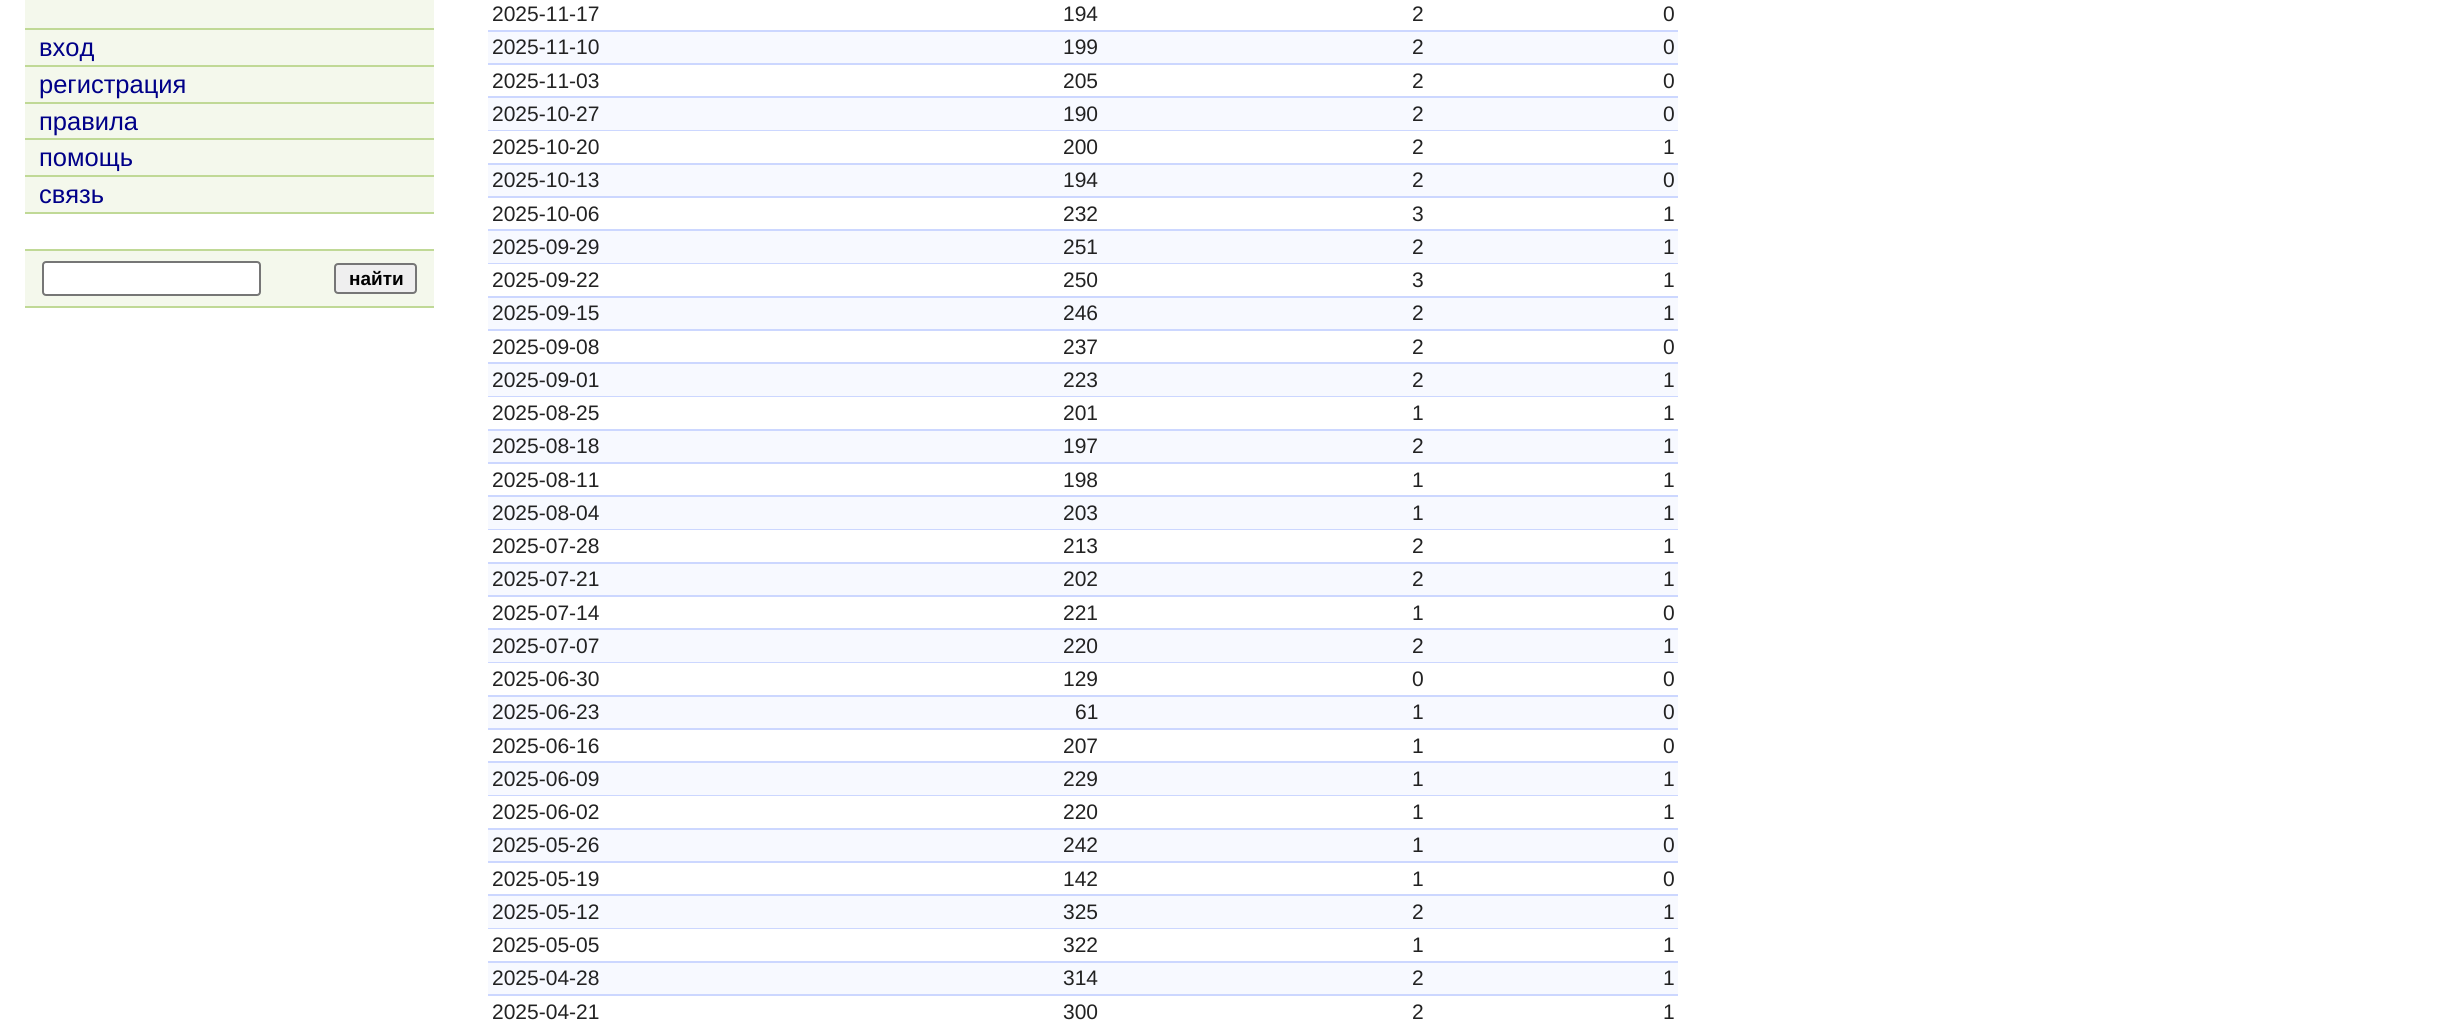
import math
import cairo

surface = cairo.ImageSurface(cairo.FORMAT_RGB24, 2448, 1023)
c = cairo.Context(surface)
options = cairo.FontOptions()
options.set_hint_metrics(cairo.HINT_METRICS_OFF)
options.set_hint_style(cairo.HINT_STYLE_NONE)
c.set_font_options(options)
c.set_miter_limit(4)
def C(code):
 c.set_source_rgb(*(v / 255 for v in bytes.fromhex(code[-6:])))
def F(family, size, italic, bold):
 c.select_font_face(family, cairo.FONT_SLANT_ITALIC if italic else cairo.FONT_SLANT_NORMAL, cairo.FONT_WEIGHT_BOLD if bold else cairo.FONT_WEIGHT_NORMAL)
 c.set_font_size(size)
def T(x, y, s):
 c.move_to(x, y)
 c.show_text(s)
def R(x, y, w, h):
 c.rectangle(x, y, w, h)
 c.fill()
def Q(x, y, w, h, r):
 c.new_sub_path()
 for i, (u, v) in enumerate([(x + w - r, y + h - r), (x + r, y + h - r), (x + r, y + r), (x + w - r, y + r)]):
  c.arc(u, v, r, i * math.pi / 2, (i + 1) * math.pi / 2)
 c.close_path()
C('ffffff')
c.paint()
C('f4f8ec')
R(25,0,409,212)
C('c0d996')
R(25,28,409,2)
F('Liberation Sans',25.5,0,0)
C('000088')
T(39,56,'вход')
C('c0d996')
R(25,65,409,2)
C('000088')
T(39,93,'регистрация')
C('c0d996')
R(25,102,409,2)
C('000088')
T(39,130,'правила')
C('c0d996')
R(25,138,409,2)
C('000088')
T(39,166,'помощь')
C('c0d996')
R(25,175,409,2)
C('000088')
T(39,203,'связь')
C('c0d996')
R(25,212,409,2)
C('f4f8ec')
R(25,251,409,55)
C('c0d996')
R(25,249,409,2)
R(25,306,409,2)
C('ffffff')
Q(43,262,217,33,3)
c.fill_preserve()
C('767676')
c.stroke()
C('efefef')
Q(335,264,81,29,3)
c.fill_preserve()
C('767676')
c.stroke()
F('Liberation Sans',19,0,1)
C('000000')
T(349,285,'найти')
C('ccd7ff')
R(488,30,1190,2)
F('Liberation Sans',21,0,0)
C('222222')
T(492,21,'2025-11-17')
T(1063,21,'194')
T(1412,21,'2')
T(1663,21,'0')
C('f7f9ff')
R(488,32,1190,31)
C('ccd7ff')
R(488,63,1190,2)
C('222222')
T(492,54,'2025-11-10')
T(1063,54,'199')
T(1412,54,'2')
T(1663,54,'0')
C('ccd7ff')
R(488,96,1190,2)
C('222222')
T(492,88,'2025-11-03')
T(1063,88,'205')
T(1412,88,'2')
T(1663,88,'0')
C('f7f9ff')
R(488,98,1190,32)
C('ccd7ff')
R(488,130,1190,1)
C('222222')
T(492,121,'2025-10-27')
T(1063,121,'190')
T(1412,121,'2')
T(1663,121,'0')
C('ccd7ff')
R(488,163,1190,2)
C('222222')
T(492,154,'2025-10-20')
T(1063,154,'200')
T(1412,154,'2')
T(1663,154,'1')
C('f7f9ff')
R(488,165,1190,31)
C('ccd7ff')
R(488,196,1190,2)
C('222222')
T(492,187,'2025-10-13')
T(1063,187,'194')
T(1412,187,'2')
T(1663,187,'0')
C('ccd7ff')
R(488,229,1190,2)
C('222222')
T(492,221,'2025-10-06')
T(1063,221,'232')
T(1412,221,'3')
T(1663,221,'1')
C('f7f9ff')
R(488,231,1190,32)
C('ccd7ff')
R(488,263,1190,1)
C('222222')
T(492,254,'2025-09-29')
T(1063,254,'251')
T(1412,254,'2')
T(1663,254,'1')
C('ccd7ff')
R(488,296,1190,2)
C('222222')
T(492,287,'2025-09-22')
T(1063,287,'250')
T(1412,287,'3')
T(1663,287,'1')
C('f7f9ff')
R(488,298,1190,31)
C('ccd7ff')
R(488,329,1190,2)
C('222222')
T(492,320,'2025-09-15')
T(1063,320,'246')
T(1412,320,'2')
T(1663,320,'1')
C('ccd7ff')
R(488,362,1190,2)
C('222222')
T(492,354,'2025-09-08')
T(1063,354,'237')
T(1412,354,'2')
T(1663,354,'0')
C('f7f9ff')
R(488,364,1190,32)
C('ccd7ff')
R(488,396,1190,1)
C('222222')
T(492,387,'2025-09-01')
T(1063,387,'223')
T(1412,387,'2')
T(1663,387,'1')
C('ccd7ff')
R(488,429,1190,2)
C('222222')
T(492,420,'2025-08-25')
T(1063,420,'201')
T(1412,420,'1')
T(1663,420,'1')
C('f7f9ff')
R(488,431,1190,31)
C('ccd7ff')
R(488,462,1190,2)
C('222222')
T(492,453,'2025-08-18')
T(1063,453,'197')
T(1412,453,'2')
T(1663,453,'1')
C('ccd7ff')
R(488,495,1190,2)
C('222222')
T(492,487,'2025-08-11')
T(1063,487,'198')
T(1412,487,'1')
T(1663,487,'1')
C('f7f9ff')
R(488,497,1190,32)
C('ccd7ff')
R(488,529,1190,1)
C('222222')
T(492,520,'2025-08-04')
T(1063,520,'203')
T(1412,520,'1')
T(1663,520,'1')
C('ccd7ff')
R(488,562,1190,2)
C('222222')
T(492,553,'2025-07-28')
T(1063,553,'213')
T(1412,553,'2')
T(1663,553,'1')
C('f7f9ff')
R(488,564,1190,31)
C('ccd7ff')
R(488,595,1190,2)
C('222222')
T(492,586,'2025-07-21')
T(1063,586,'202')
T(1412,586,'2')
T(1663,586,'1')
C('ccd7ff')
R(488,628,1190,2)
C('222222')
T(492,620,'2025-07-14')
T(1063,620,'221')
T(1412,620,'1')
T(1663,620,'0')
C('f7f9ff')
R(488,630,1190,32)
C('ccd7ff')
R(488,662,1190,1)
C('222222')
T(492,653,'2025-07-07')
T(1063,653,'220')
T(1412,653,'2')
T(1663,653,'1')
C('ccd7ff')
R(488,695,1190,2)
C('222222')
T(492,686,'2025-06-30')
T(1063,686,'129')
T(1412,686,'0')
T(1663,686,'0')
C('f7f9ff')
R(488,697,1190,31)
C('ccd7ff')
R(488,728,1190,2)
C('222222')
T(492,719,'2025-06-23')
T(1075,719,'61')
T(1412,719,'1')
T(1663,719,'0')
C('ccd7ff')
R(488,761,1190,2)
C('222222')
T(492,753,'2025-06-16')
T(1063,753,'207')
T(1412,753,'1')
T(1663,753,'0')
C('f7f9ff')
R(488,763,1190,32)
C('ccd7ff')
R(488,795,1190,1)
C('222222')
T(492,786,'2025-06-09')
T(1063,786,'229')
T(1412,786,'1')
T(1663,786,'1')
C('ccd7ff')
R(488,828,1190,2)
C('222222')
T(492,819,'2025-06-02')
T(1063,819,'220')
T(1412,819,'1')
T(1663,819,'1')
C('f7f9ff')
R(488,830,1190,31)
C('ccd7ff')
R(488,861,1190,2)
C('222222')
T(492,852,'2025-05-26')
T(1063,852,'242')
T(1412,852,'1')
T(1663,852,'0')
C('ccd7ff')
R(488,894,1190,2)
C('222222')
T(492,886,'2025-05-19')
T(1063,886,'142')
T(1412,886,'1')
T(1663,886,'0')
C('f7f9ff')
R(488,896,1190,32)
C('ccd7ff')
R(488,928,1190,1)
C('222222')
T(492,919,'2025-05-12')
T(1063,919,'325')
T(1412,919,'2')
T(1663,919,'1')
C('ccd7ff')
R(488,961,1190,2)
C('222222')
T(492,952,'2025-05-05')
T(1063,952,'322')
T(1412,952,'1')
T(1663,952,'1')
C('f7f9ff')
R(488,963,1190,31)
C('ccd7ff')
R(488,994,1190,2)
C('222222')
T(492,985,'2025-04-28')
T(1063,985,'314')
T(1412,985,'2')
T(1663,985,'1')
T(492,1019,'2025-04-21')
T(1063,1019,'300')
T(1412,1019,'2')
T(1663,1019,'1')
surface.write_to_png('o.png')
